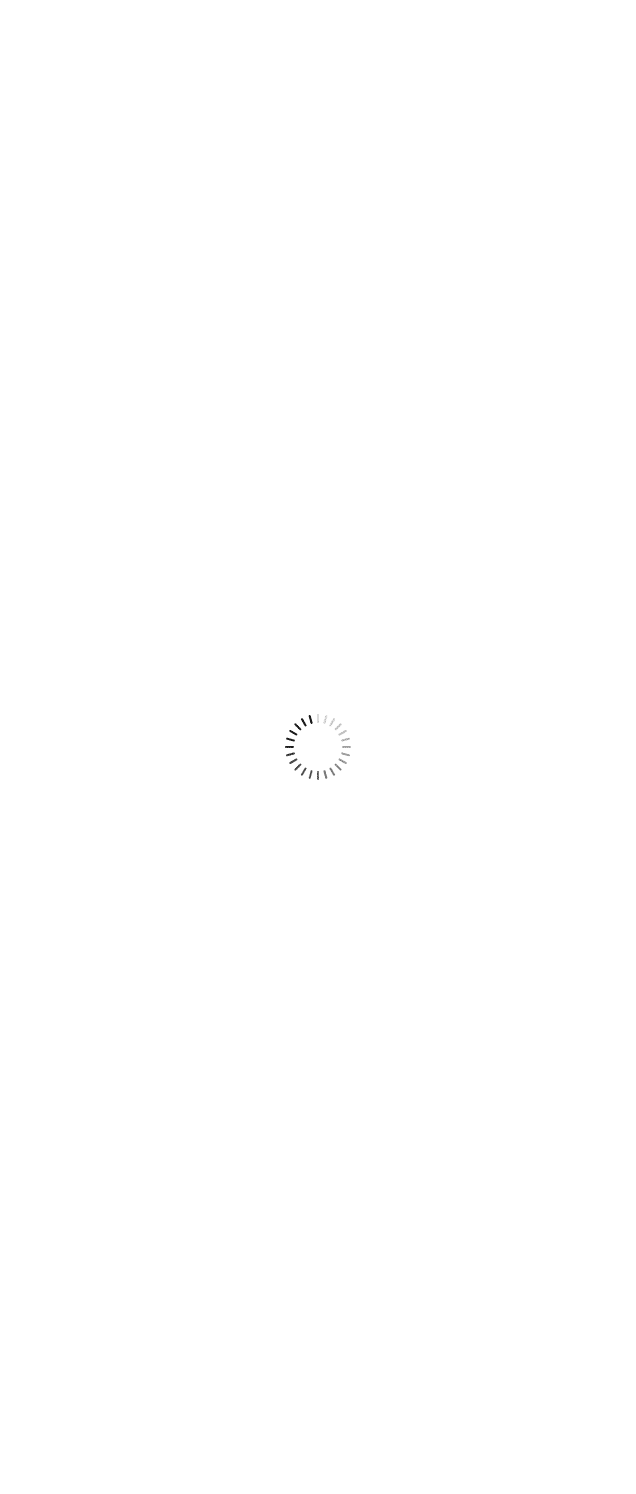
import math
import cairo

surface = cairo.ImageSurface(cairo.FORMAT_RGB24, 636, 1494)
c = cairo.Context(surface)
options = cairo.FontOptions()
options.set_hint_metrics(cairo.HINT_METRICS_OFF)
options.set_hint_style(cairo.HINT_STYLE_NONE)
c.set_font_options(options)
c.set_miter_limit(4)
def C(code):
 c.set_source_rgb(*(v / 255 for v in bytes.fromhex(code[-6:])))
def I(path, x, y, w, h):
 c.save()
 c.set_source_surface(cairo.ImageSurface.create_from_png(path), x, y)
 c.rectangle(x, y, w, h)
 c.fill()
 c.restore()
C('ffffff')
c.paint()
I('1.png',285,714,66,66)
surface.write_to_png('o.png')
